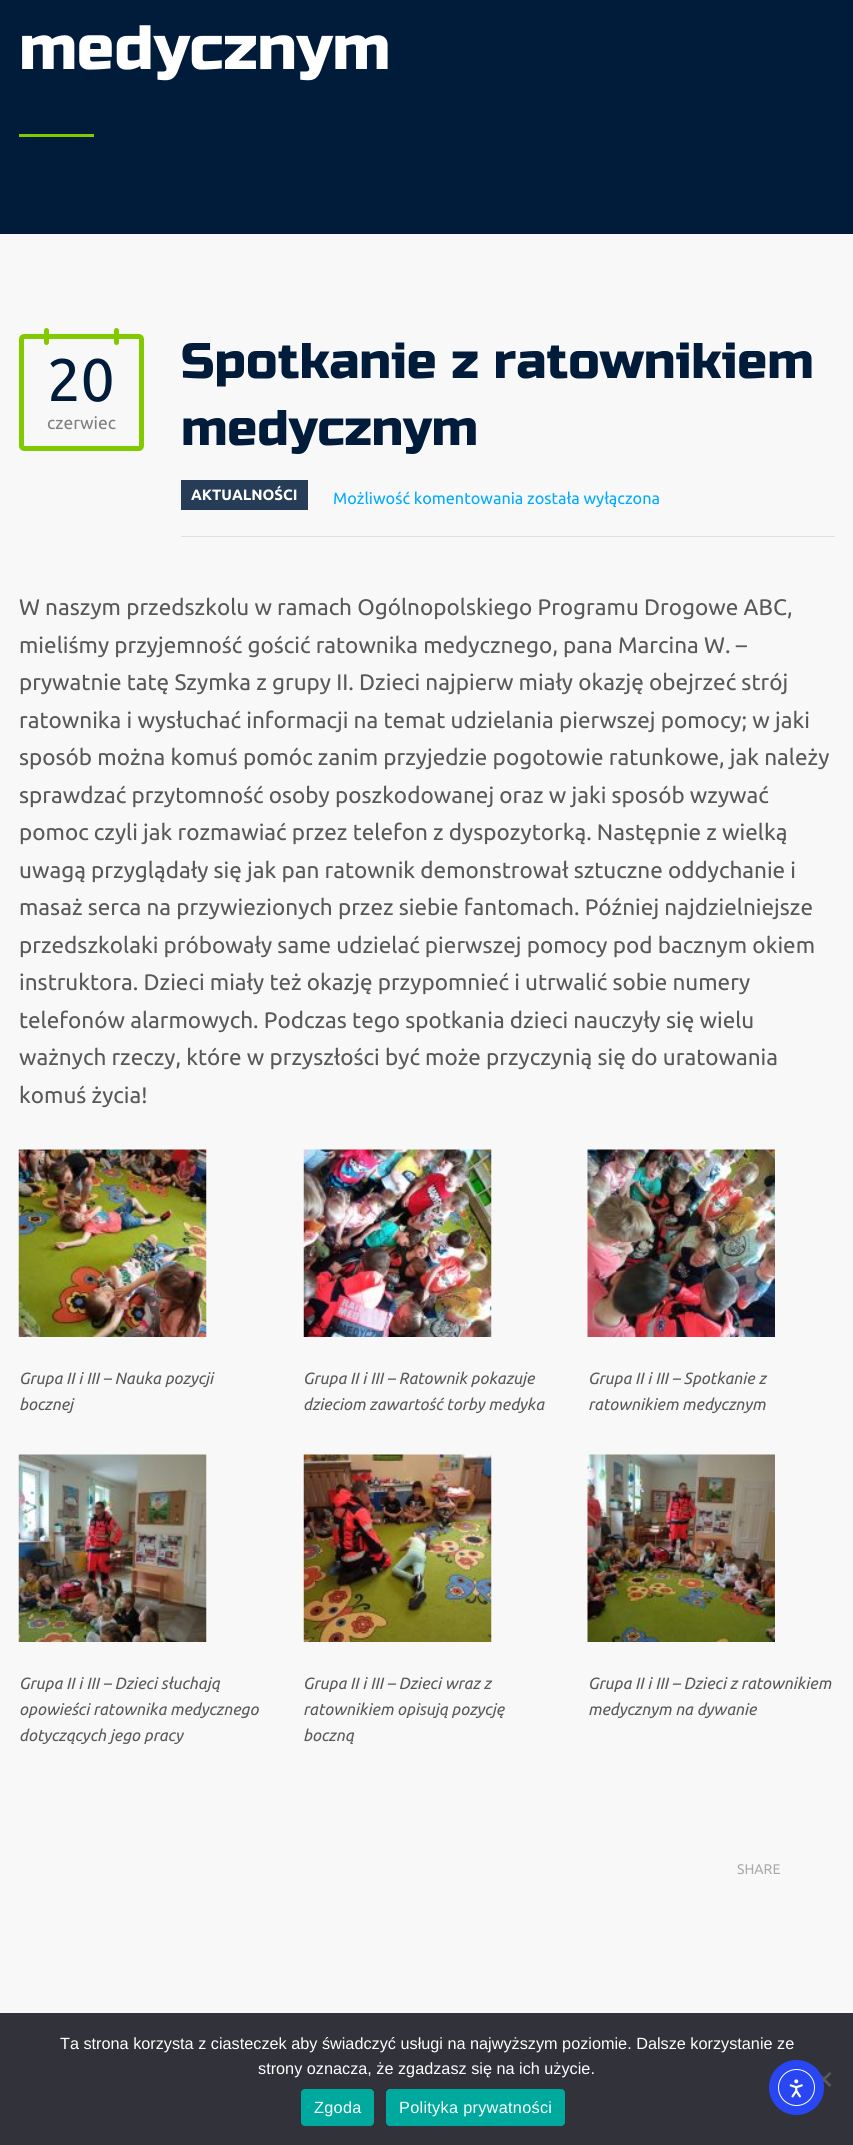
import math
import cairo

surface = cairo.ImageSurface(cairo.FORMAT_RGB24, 853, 2145)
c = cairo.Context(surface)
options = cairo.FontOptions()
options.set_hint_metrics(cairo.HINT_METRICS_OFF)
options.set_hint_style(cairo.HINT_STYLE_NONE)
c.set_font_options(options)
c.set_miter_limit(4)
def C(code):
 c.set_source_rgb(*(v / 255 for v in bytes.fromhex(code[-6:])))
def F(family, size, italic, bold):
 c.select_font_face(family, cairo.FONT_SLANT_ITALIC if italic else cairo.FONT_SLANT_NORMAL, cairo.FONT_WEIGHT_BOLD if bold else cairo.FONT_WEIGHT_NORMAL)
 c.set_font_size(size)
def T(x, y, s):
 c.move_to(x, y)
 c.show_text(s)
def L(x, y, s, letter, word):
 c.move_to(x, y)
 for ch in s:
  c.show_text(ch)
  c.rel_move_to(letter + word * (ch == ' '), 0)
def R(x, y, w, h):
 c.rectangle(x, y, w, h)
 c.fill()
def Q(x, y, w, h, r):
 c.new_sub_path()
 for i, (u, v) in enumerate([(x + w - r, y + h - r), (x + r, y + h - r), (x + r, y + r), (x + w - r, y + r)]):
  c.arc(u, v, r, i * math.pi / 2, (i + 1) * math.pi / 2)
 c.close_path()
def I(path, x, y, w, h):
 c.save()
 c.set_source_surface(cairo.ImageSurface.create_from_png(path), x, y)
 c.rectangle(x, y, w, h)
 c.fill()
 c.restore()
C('f8f8f8')
c.paint()
C('011b3a')
R(0,0,853,234)
F('Russo One',62.5,0,0)
C('ffffff')
T(19,69,'medycznym')
C('81ca00')
R(19,134,75,3)
Q(21.5,336.5,120,112,2.5)
c.set_line_width(5)
c.stroke()
Q(44,328,5,17,2.5)
c.fill()
Q(114,328,5,17,2.5)
c.fill()
F('Ubuntu',60,0,0)
C('011b3a')
T(47,401,'20')
F('Ubuntu',17.5,0,0)
C('808080')
T(47,429,'czerwiec')
F('Russo One',50,0,0)
C('011b3a')
T(181,378,'Spotkanie z ratownikiem')
T(181,445,'medycznym')
C('dfdfdf')
R(181,536,654,1)
C('263c57')
R(181,480,127,30)
F('Ubuntu',15,0,1)
C('ffffff')
T(191,500,'AKTUALNOŚCI')
F('Ubuntu',16.25,0,0)
C('00aaff')
T(333,504,'Możliwość komentowania została wyłączona')
F('Ubuntu',22.5,0,0)
C('595959')
T(19,615,'W naszym przedszkolu w ramach Ogólnopolskiego Programu Drogowe ABC,')
T(19,653,'mieliśmy przyjemność gościć ratownika medycznego, pana Marcina W. –')
T(19,690,'prywatnie tatę Szymka z grupy II. Dzieci najpierw miały okazję obejrzeć strój')
T(19,728,'ratownika i wysłuchać informacji na temat udzielania pierwszej pomocy; w jaki')
T(19,765,'sposób można komuś pomóc zanim przyjedzie pogotowie ratunkowe, jak należy')
T(19,803,'sprawdzać przytomność osoby poszkodowanej oraz w jaki sposób wzywać')
T(19,840,'pomoc czyli jak rozmawiać przez telefon z dyspozytorką. Następnie z wielką')
T(19,878,'uwagą przyglądały się jak pan ratownik demonstrował sztuczne oddychanie i')
T(19,915,'masaż serca na przywiezionych przez siebie fantomach. Później najdzielniejsze')
T(19,953,'przedszkolaki próbowały same udzielać pierwszej pomocy pod bacznym okiem')
T(19,990,'instruktora. Dzieci miały też okazję przypomnieć i utrwalić sobie numery')
T(19,1028,'telefonów alarmowych. Podczas tego spotkania dzieci nauczyły się wielu')
T(19,1065,'ważnych rzeczy, które w przyszłości być może przyczynią się do uratowania')
T(19,1103,'komuś życia!')
I('1.png',18,1149,189,188)
F('Ubuntu',16.25,1,0)
T(19,1384,'Grupa II i III – Nauka pozycji')
T(19,1410,'bocznej')
I('2.png',303,1149,189,188)
T(303,1384,'Grupa II i III – Ratownik pokazuje')
T(303,1410,'dzieciom zawartość torby medyka')
I('3.png',587,1149,188,188)
T(588,1384,'Grupa II i III – Spotkanie z')
T(588,1410,'ratownikiem medycznym')
I('4.png',18,1454,189,188)
T(19,1689,'Grupa II i III – Dzieci słuchają')
T(19,1715,'opowieści ratownika medycznego')
T(19,1741,'dotyczących jego pracy')
I('5.png',303,1454,189,188)
T(303,1689,'Grupa II i III – Dzieci wraz z')
T(303,1715,'ratownikiem opisują pozycję')
T(303,1741,'boczną')
I('6.png',587,1454,188,188)
T(588,1689,'Grupa II i III – Dzieci z ratownikiem')
T(588,1715,'medycznym na dywanie')
F('Ubuntu',14,0,0)
C('aaaaaa')
T(737,1874,'SHARE')
C('32323a')
R(0,2013,853,132)
F('Liberation Sans',16.25,0,0)
C('ffffff')
T(60,2049,'Ta strona korzysta z ciasteczek aby świadczyć usługi na najwyższym poziomie. Dalsze korzystanie ze')
T(258,2074,'strony oznacza, że zgadzasz się na ich użycie.')
C('59595d')
c.new_path()
c.move_to(829.5,2072)
c.line_to(831.5,2073.5)
c.line_to(818,2087)
c.line_to(816,2085)
c.close_path()
c.fill()
c.new_path()
c.move_to(816,2073.5)
c.line_to(818,2072)
c.line_to(831.5,2085)
c.line_to(829.5,2087)
c.close_path()
c.fill()
C('00a99d')
Q(301,2089,73,37,4)
c.fill()
C('ffffff')
L(314,2113,'Zgoda',.3,0)
C('00a99d')
Q(386,2089,179,37,4)
c.fill()
C('ffffff')
L(399,2113,'Polityka prywatności',.3,0)
C('2847f3')
c.new_path()
c.arc(796.5,2087.5,27.5,0,2 * math.pi)
c.fill()
c.arc(796.5,2087.5,18,0,2 * math.pi)
C('ffffff')
c.set_line_width(1)
c.stroke()
I('7.png',789,2079,14,19)
surface.write_to_png('o.png')
